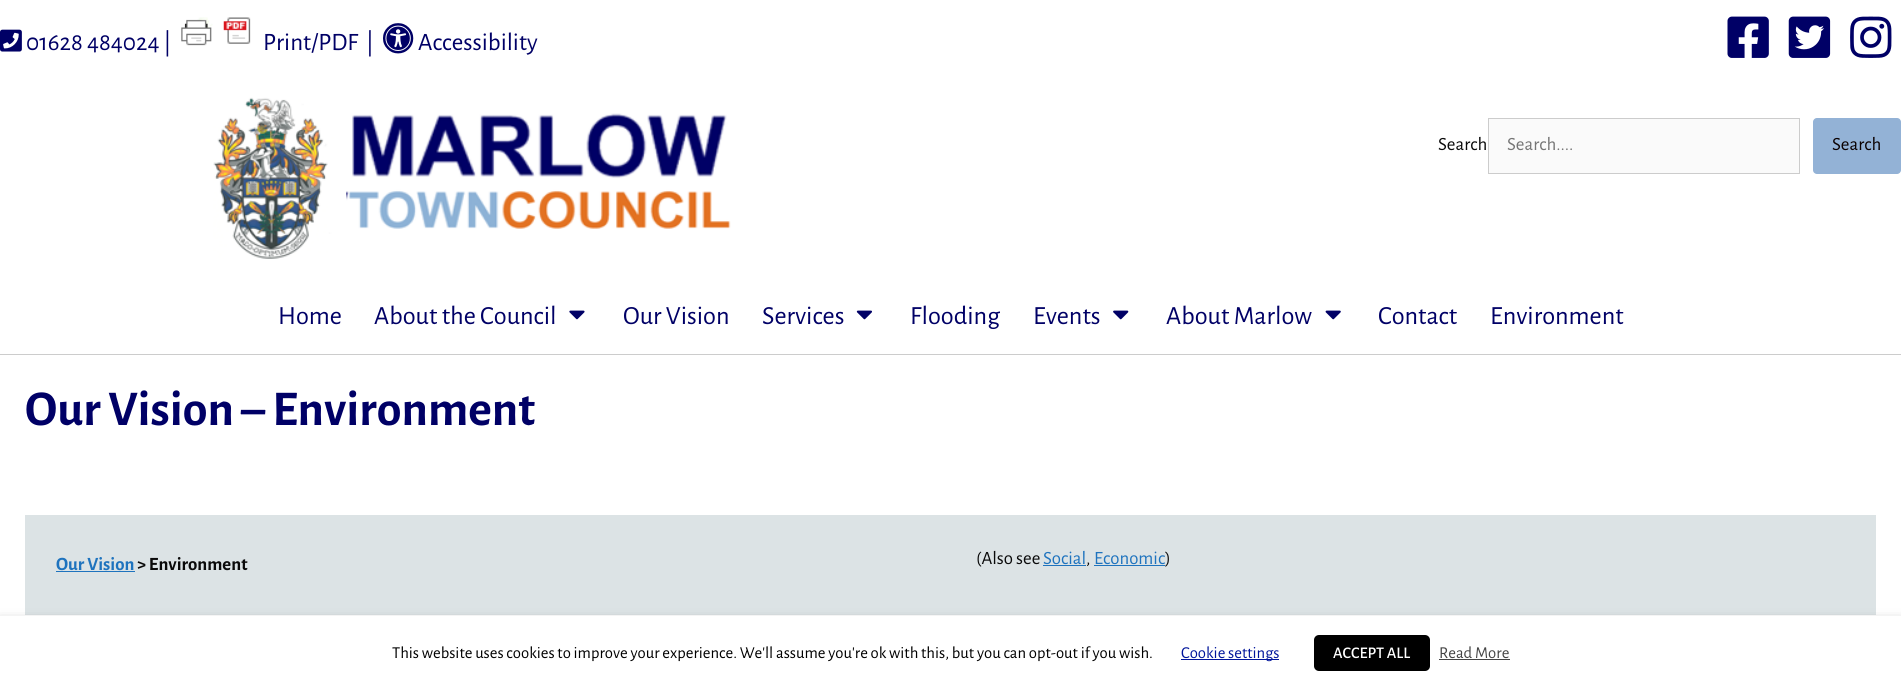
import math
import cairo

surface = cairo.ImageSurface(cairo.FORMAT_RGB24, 1901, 690)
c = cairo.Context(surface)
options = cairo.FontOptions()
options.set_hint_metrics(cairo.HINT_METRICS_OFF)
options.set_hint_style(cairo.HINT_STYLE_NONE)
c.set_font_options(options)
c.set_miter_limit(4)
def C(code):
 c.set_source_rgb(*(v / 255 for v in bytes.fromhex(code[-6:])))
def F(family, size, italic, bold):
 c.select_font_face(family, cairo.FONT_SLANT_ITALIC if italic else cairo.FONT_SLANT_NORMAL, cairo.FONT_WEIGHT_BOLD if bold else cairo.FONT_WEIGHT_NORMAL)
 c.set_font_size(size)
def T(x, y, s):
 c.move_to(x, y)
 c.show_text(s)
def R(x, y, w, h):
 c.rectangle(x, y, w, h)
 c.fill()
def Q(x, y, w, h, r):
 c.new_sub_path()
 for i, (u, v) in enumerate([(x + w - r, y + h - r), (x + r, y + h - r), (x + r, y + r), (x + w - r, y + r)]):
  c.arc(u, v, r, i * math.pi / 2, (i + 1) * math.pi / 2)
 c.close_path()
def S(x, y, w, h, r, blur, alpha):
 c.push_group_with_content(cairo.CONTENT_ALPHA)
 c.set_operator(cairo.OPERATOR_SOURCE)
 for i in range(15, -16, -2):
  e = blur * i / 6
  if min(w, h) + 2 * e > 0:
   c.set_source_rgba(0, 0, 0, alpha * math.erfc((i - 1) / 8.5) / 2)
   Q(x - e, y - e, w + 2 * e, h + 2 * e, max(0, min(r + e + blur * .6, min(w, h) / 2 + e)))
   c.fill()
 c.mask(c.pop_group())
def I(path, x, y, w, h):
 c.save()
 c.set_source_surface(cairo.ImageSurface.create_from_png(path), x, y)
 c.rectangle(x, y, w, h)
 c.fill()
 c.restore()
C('ffffff')
c.paint()
I('1.png',0,29,22,23)
F('Alegreya Sans',25,0,0)
C('000066')
T(26,50,'01628 484024 |')
I('2.png',181,17,70,29)
T(263,50,'Print/PDF')
T(366,50,'|')
I('3.png',383,23,31,31)
T(418,50,'Accessibility')
I('4.png',1727,16,42,42)
I('5.png',1788,16,43,42)
I('6.png',1850,16,42,42)
C('cccccc')
R(0,354,1901,1)
I('7.png',213,97,518,162)
F('Alegreya Sans',18.75,0,0)
C('0a0a0a')
T(1438,150,'Search')
C('fafafa')
c.rectangle(1488.5,118.5,311,55)
c.fill_preserve()
C('cccccc')
c.set_line_width(1)
c.stroke()
C('757575')
T(1507,150,'Search....')
C('93b2d6')
Q(1813,118,88,56,4)
c.fill()
C('0a0000')
T(1832,150,'Search')
F('Alegreya Sans',26.25,0,0)
C('000066')
T(278,324,'Home')
T(374,324,'About the Council')
I('8.png',569,310,16,10)
T(623,324,'Our Vision')
T(762,324,'Services')
I('9.png',856,310,16,10)
T(910,324,'Flooding')
T(1033,324,'Events')
I('10.png',1113,310,16,10)
T(1166,324,'About Marlow')
I('11.png',1325,310,16,10)
T(1378,324,'Contact')
T(1490,324,'Environment')
F('Alegreya Sans',50,0,1)
T(25,425,'Our Vision – Environment')
C('dce3e5')
R(25,515,1851,100)
F('Alegreya Sans',18.75,0,1)
C('1e73be')
T(56,570,'Our Vision')
R(56,571,79,1)
C('0a0a0a')
T(137,570,'> Environment')
F('Alegreya Sans',18.75,0,0)
T(976,564,'(Also see')
C('1e73be')
T(1043,564,'Social')
R(1043,565,43,1)
C('0a0a0a')
T(1086,564,',')
C('1e73be')
T(1094,564,'Economic')
R(1094,565,71,1)
C('0a0a0a')
T(1165,564,')')
C('000000')
S(0,623,1901,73,0,6,.5)
C('ffffff')
R(0,616,1901,74)
F('Alegreya Sans',16.65,0,0)
C('000000')
T(392,658,'This website uses cookies to improve your experience. We\'ll assume you\'re ok with this, but you can opt-out if you wish.')
C('00149b')
R(1181,659,98,1)
T(1181,658,'Cookie settings')
C('000000')
Q(1314,635,116,36,5)
c.fill()
F('Alegreya Sans Medium',16.25,0,0)
C('ffffff')
T(1333,658,'ACCEPT ALL')
F('Alegreya Sans',16.65,0,0)
C('444444')
T(1439,658,'Read More')
R(1439,659,71,1)
surface.write_to_png('o.png')
